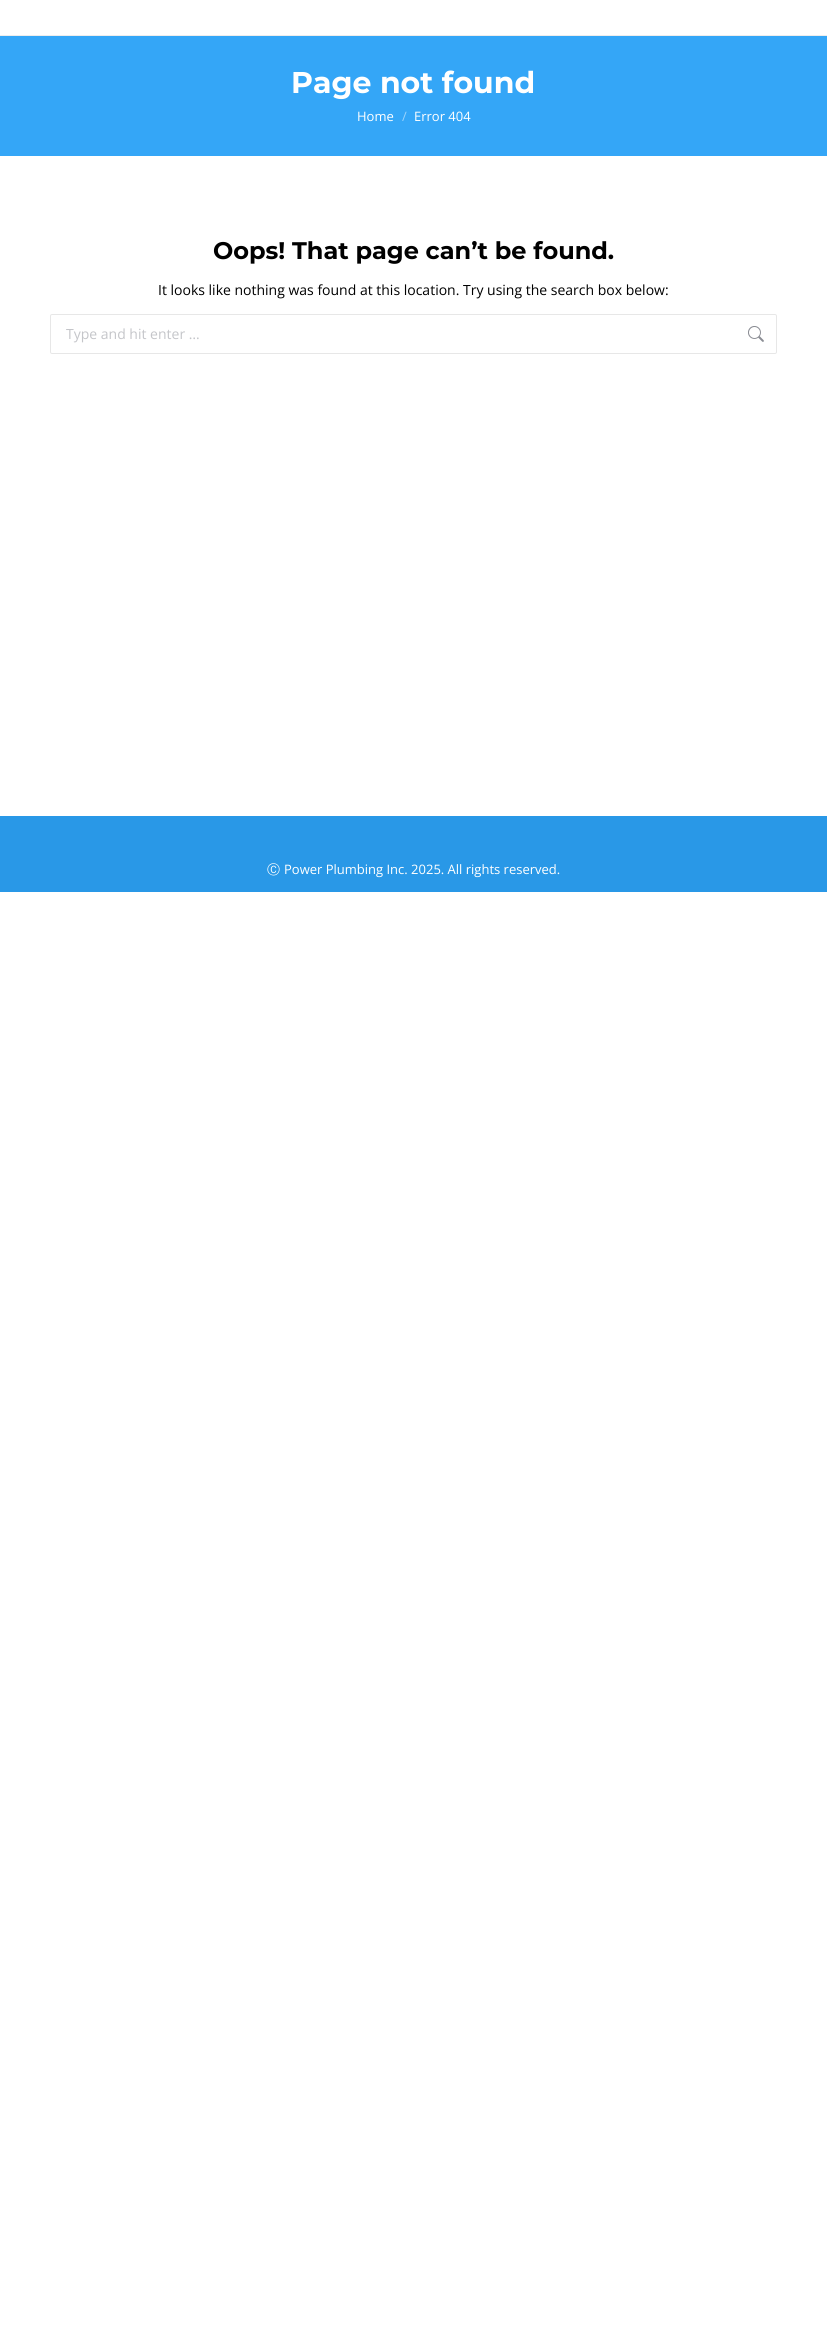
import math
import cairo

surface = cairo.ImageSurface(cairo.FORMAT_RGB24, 827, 2332)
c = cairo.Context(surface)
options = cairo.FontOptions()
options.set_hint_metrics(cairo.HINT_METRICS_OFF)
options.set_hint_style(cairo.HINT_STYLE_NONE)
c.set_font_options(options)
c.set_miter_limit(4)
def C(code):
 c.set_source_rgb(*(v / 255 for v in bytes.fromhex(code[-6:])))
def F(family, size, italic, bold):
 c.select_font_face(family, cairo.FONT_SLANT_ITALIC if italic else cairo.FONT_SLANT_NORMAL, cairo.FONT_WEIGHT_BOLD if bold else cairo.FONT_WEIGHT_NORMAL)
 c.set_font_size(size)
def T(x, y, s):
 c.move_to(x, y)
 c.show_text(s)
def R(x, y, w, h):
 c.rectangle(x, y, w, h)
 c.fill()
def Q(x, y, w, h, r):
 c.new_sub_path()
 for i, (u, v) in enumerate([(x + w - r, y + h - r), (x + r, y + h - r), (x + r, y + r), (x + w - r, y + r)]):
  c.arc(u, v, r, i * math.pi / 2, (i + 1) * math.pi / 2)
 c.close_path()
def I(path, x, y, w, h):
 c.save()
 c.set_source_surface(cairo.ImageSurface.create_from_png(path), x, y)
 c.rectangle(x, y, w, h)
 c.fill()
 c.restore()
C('ffffff')
c.paint()
C('ededed')
R(0,35,827,1)
C('34a6f7')
R(0,36,827,120)
F('Montserrat',30,0,1)
C('ffffff')
T(291,93,'Page not found')
F('Open Sans',13,0,0)
T(357,121,'Home')
C('9ad3fb')
T(402,121,'/')
C('ffffff')
T(414,121,'Error 404')
F('Montserrat',24,0,1)
C('000000')
T(213,259,'Oops! That page can’t be found.')
F('Open Sans',14,0,0)
T(158,295,'It looks like nothing was found at this location. Try using the search box below:')
Q(50.5,314.5,726,39,1.5)
C('e7e7e7')
c.set_line_width(1)
c.stroke()
C('c4c5c9')
T(66,339,'Type and hit enter …')
I('1.png',748,326,16,16)
C('2998e7')
R(0,816,827,76)
F('WenQuanYi Zen Hei Medium',13,0,0)
C('ffffff')
T(267,874,'Ⓒ')
F('Open Sans',13,0,0)
T(284,874,'Power Plumbing Inc. 2025. All rights reserved.')
surface.write_to_png('o.png')
